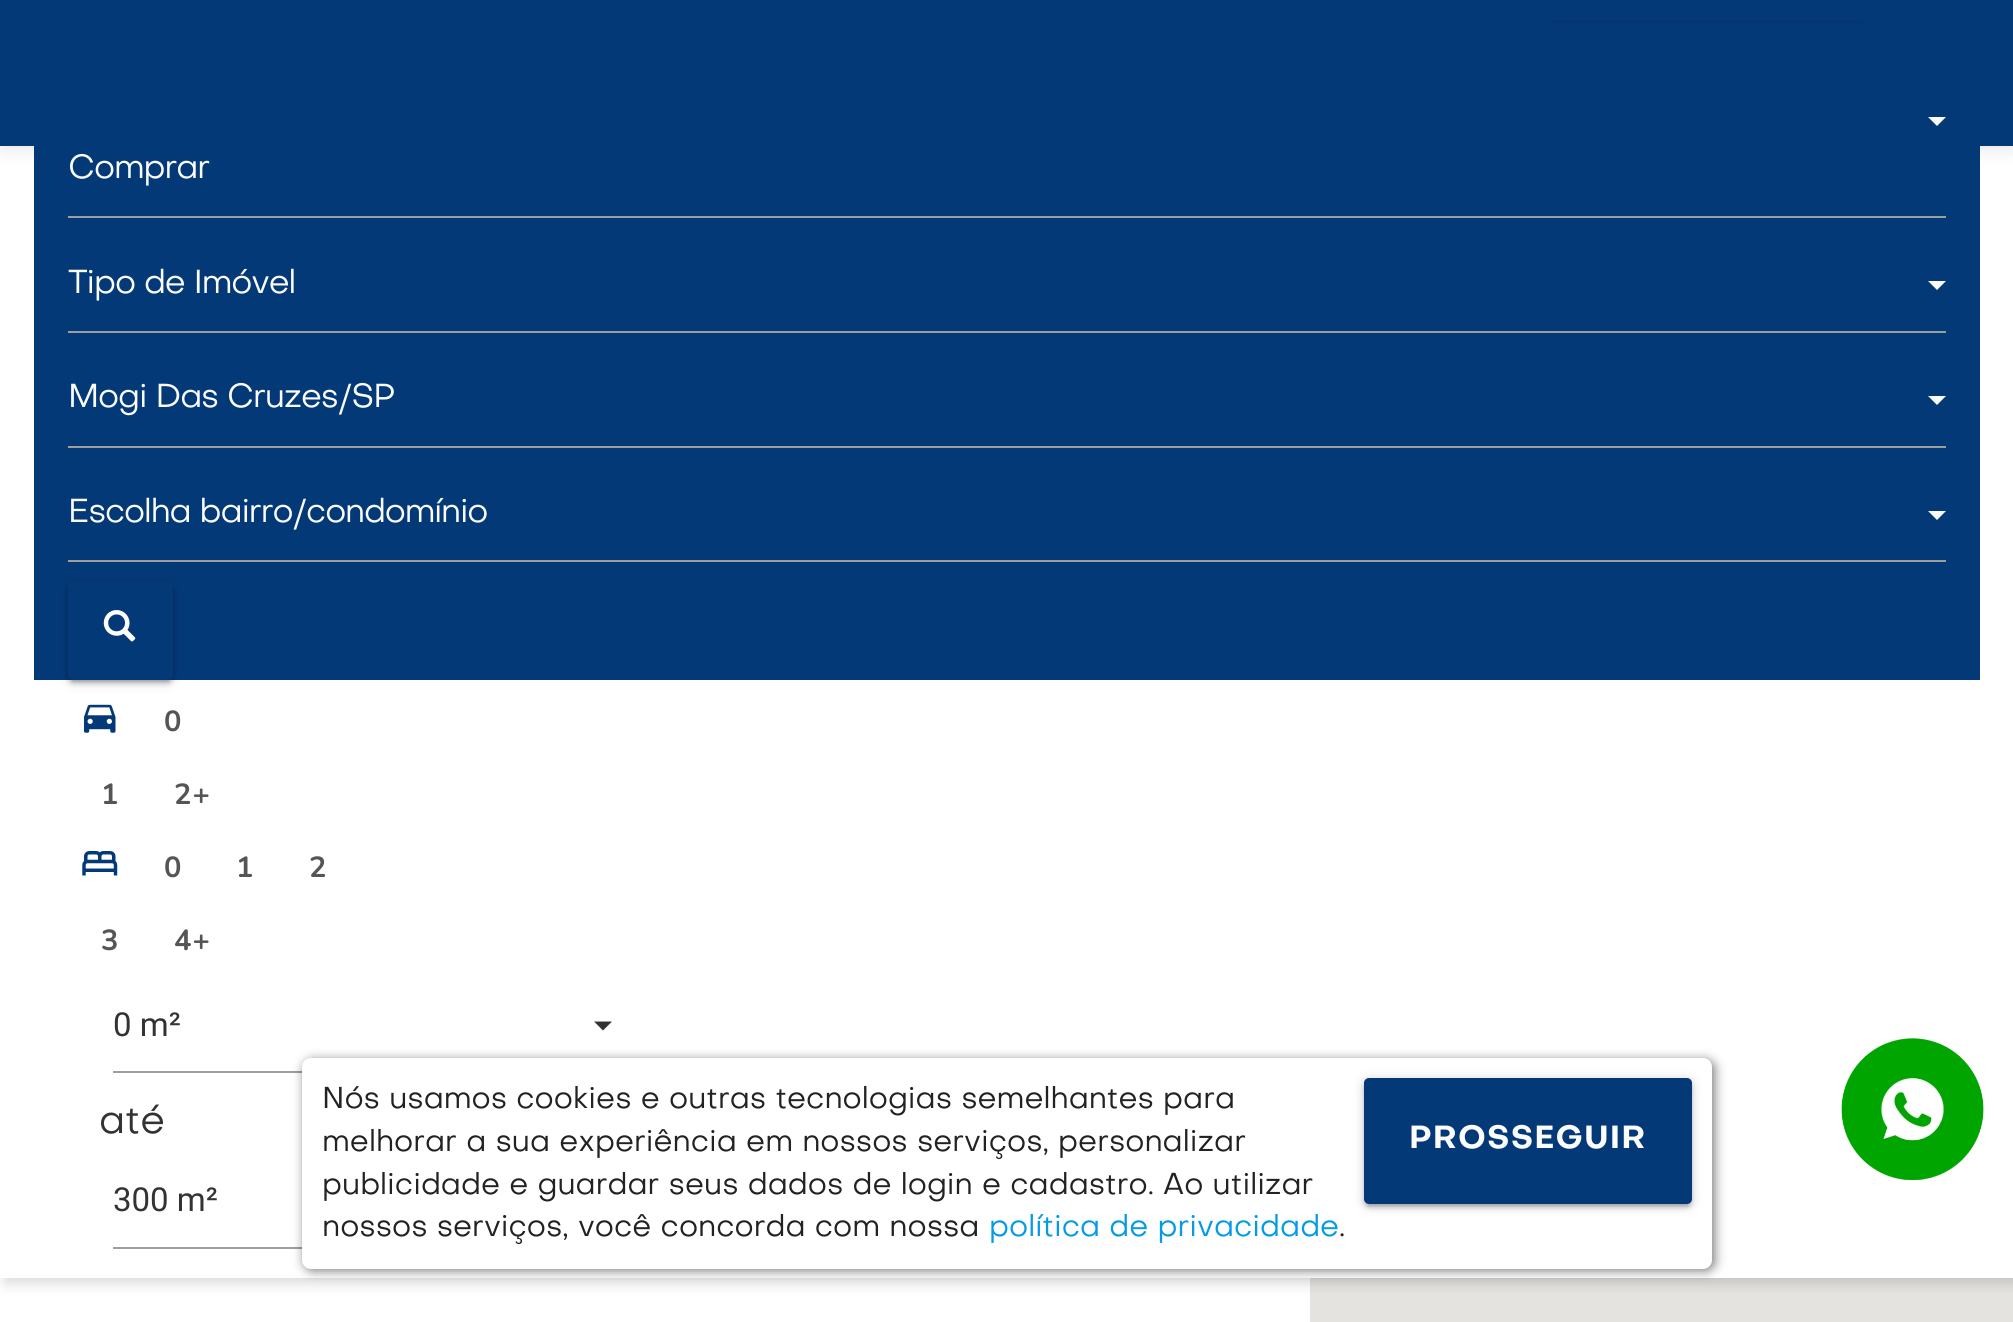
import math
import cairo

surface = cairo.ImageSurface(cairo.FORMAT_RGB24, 2013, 1322)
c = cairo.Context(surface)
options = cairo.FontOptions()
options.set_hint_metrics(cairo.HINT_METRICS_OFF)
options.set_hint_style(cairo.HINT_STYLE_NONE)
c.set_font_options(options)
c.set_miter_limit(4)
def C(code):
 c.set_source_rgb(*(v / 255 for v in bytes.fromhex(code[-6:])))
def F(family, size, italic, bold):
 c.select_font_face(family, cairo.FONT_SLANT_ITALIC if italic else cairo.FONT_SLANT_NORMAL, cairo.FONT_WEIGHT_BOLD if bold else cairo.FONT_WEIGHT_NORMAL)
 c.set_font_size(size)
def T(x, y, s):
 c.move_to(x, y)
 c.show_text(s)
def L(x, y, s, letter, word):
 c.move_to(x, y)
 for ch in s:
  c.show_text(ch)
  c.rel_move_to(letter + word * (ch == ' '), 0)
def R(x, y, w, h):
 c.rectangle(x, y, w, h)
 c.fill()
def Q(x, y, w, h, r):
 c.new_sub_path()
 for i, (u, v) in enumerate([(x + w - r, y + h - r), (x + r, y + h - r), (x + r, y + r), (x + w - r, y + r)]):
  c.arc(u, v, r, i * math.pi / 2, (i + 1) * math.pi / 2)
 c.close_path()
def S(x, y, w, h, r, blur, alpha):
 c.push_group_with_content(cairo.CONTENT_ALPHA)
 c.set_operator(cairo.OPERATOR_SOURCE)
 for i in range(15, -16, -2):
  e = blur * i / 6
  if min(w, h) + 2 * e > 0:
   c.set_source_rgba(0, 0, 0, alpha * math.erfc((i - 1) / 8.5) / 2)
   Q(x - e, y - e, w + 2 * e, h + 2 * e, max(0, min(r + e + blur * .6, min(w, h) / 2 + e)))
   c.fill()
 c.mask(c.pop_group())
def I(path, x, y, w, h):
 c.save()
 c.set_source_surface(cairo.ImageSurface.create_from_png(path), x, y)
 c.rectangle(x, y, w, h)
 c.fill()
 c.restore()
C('ffffff')
c.paint()
C('e5e3df')
R(1310,1278,703,44)
C('000000')
S(5,151,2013,1132,0,7,.15)
C('ffffff')
R(0,146,2013,1132)
C('000000')
S(2,2,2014,147,0,9,.1)
C('043978')
R(0,0,2013,146)
C('000000')
S(1548,25,315,94,5,5.5,.2)
C('043978')
R(34,23,1946,657)
C('fcfcfc')
c.new_path()
c.move_to(1928,117)
c.line_to(1946,117)
c.line_to(1937,126)
c.close_path()
c.fill()
C('9e9e9e')
R(68,216,1878,2)
F('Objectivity',33,0,0)
C('fcfcfc')
L(68,178,'Comprar',-1.1,0)
C('9e9e9e')
R(68,331,1878,2)
C('fcfcfc')
L(68,293,'Tipo de Imóvel',-1.1,0)
c.new_path()
c.move_to(1928,281)
c.line_to(1946,281)
c.line_to(1937,290)
c.close_path()
c.fill()
C('9e9e9e')
R(68,446,1878,2)
C('fcfcfc')
L(68,407,'Mogi Das Cruzes/SP',-1.1,0)
c.new_path()
c.move_to(1928,396)
c.line_to(1946,396)
c.line_to(1937,405)
c.close_path()
c.fill()
C('9e9e9e')
R(68,560,1878,2)
C('fcfcfc')
L(68,522,'Escolha bairro/condomínio',-1.1,0)
c.new_path()
c.move_to(1928,511)
c.line_to(1946,511)
c.line_to(1937,520)
c.close_path()
c.fill()
C('000000')
S(68,583,105,99,5,5.5,.2)
S(72,592,97,90,0,1,.12)
S(68,585,105,99,5,2,.14)
C('043978')
Q(68,581,105,99,5)
c.fill()
I('1.png',103,610,33,32)
I('2.png',84,704,32,29)
F('Nunito',29,0,1)
C('555555')
L(164,731,'0',1.1,0)
L(101,804,'1',1.1,0)
L(174,804,'2+',1.1,0)
I('3.png',82,851,36,25)
L(164,877,'0',1.1,0)
L(236,877,'1',1.1,0)
L(309,877,'2',1.1,0)
L(101,950,'3',1.1,0)
L(174,950,'4+',1.1,0)
C('9e9e9e')
R(113,1071,189,2)
F('Roboto',33,0,0)
C('333333')
T(113,1036,'0 m²')
c.new_path()
c.move_to(594,1021.5)
c.line_to(612,1021.5)
c.line_to(603,1030.5)
c.close_path()
c.fill()
F('Objectivity',39,0,0)
T(99,1133,'até')
C('9e9e9e')
R(113,1247,189,2)
F('Roboto',33,0,0)
C('333333')
T(113,1211,'300 m²')
C('000000')
S(304,1060,1411,211,9,5.5,.5)
C('ffffff')
Q(302,1058,1410,211,9)
c.fill()
F('Objectivity',30,0,0)
C('222222')
T(322,1108,'Nós usamos cookies e outras tecnologias semelhantes para')
T(322,1151,'melhorar a sua experiência em nossos serviços, personalizar')
C('000000')
S(1364,1080,328,126,5,5.5,.2)
S(1368,1089,320,117,0,1,.12)
S(1364,1082,328,126,5,2,.14)
C('043978')
Q(1364,1078,328,126,5)
c.fill()
F('Objectivity',31.5,0,1)
C('fcfcfc')
L(1409,1148,'PROSSEGUIR',1.1,0)
F('Objectivity',30,0,0)
C('222222')
T(322,1194,'publicidade e guardar seus dados de login e cadastro. Ao utilizar')
T(322,1236,'nossos serviços, você concorda com nossa')
C('039be5')
T(989,1236,'política de privacidade')
C('222222')
T(1339,1236,'.')
I('4.png',1841,1038,143,143)
surface.write_to_png('o.png')
